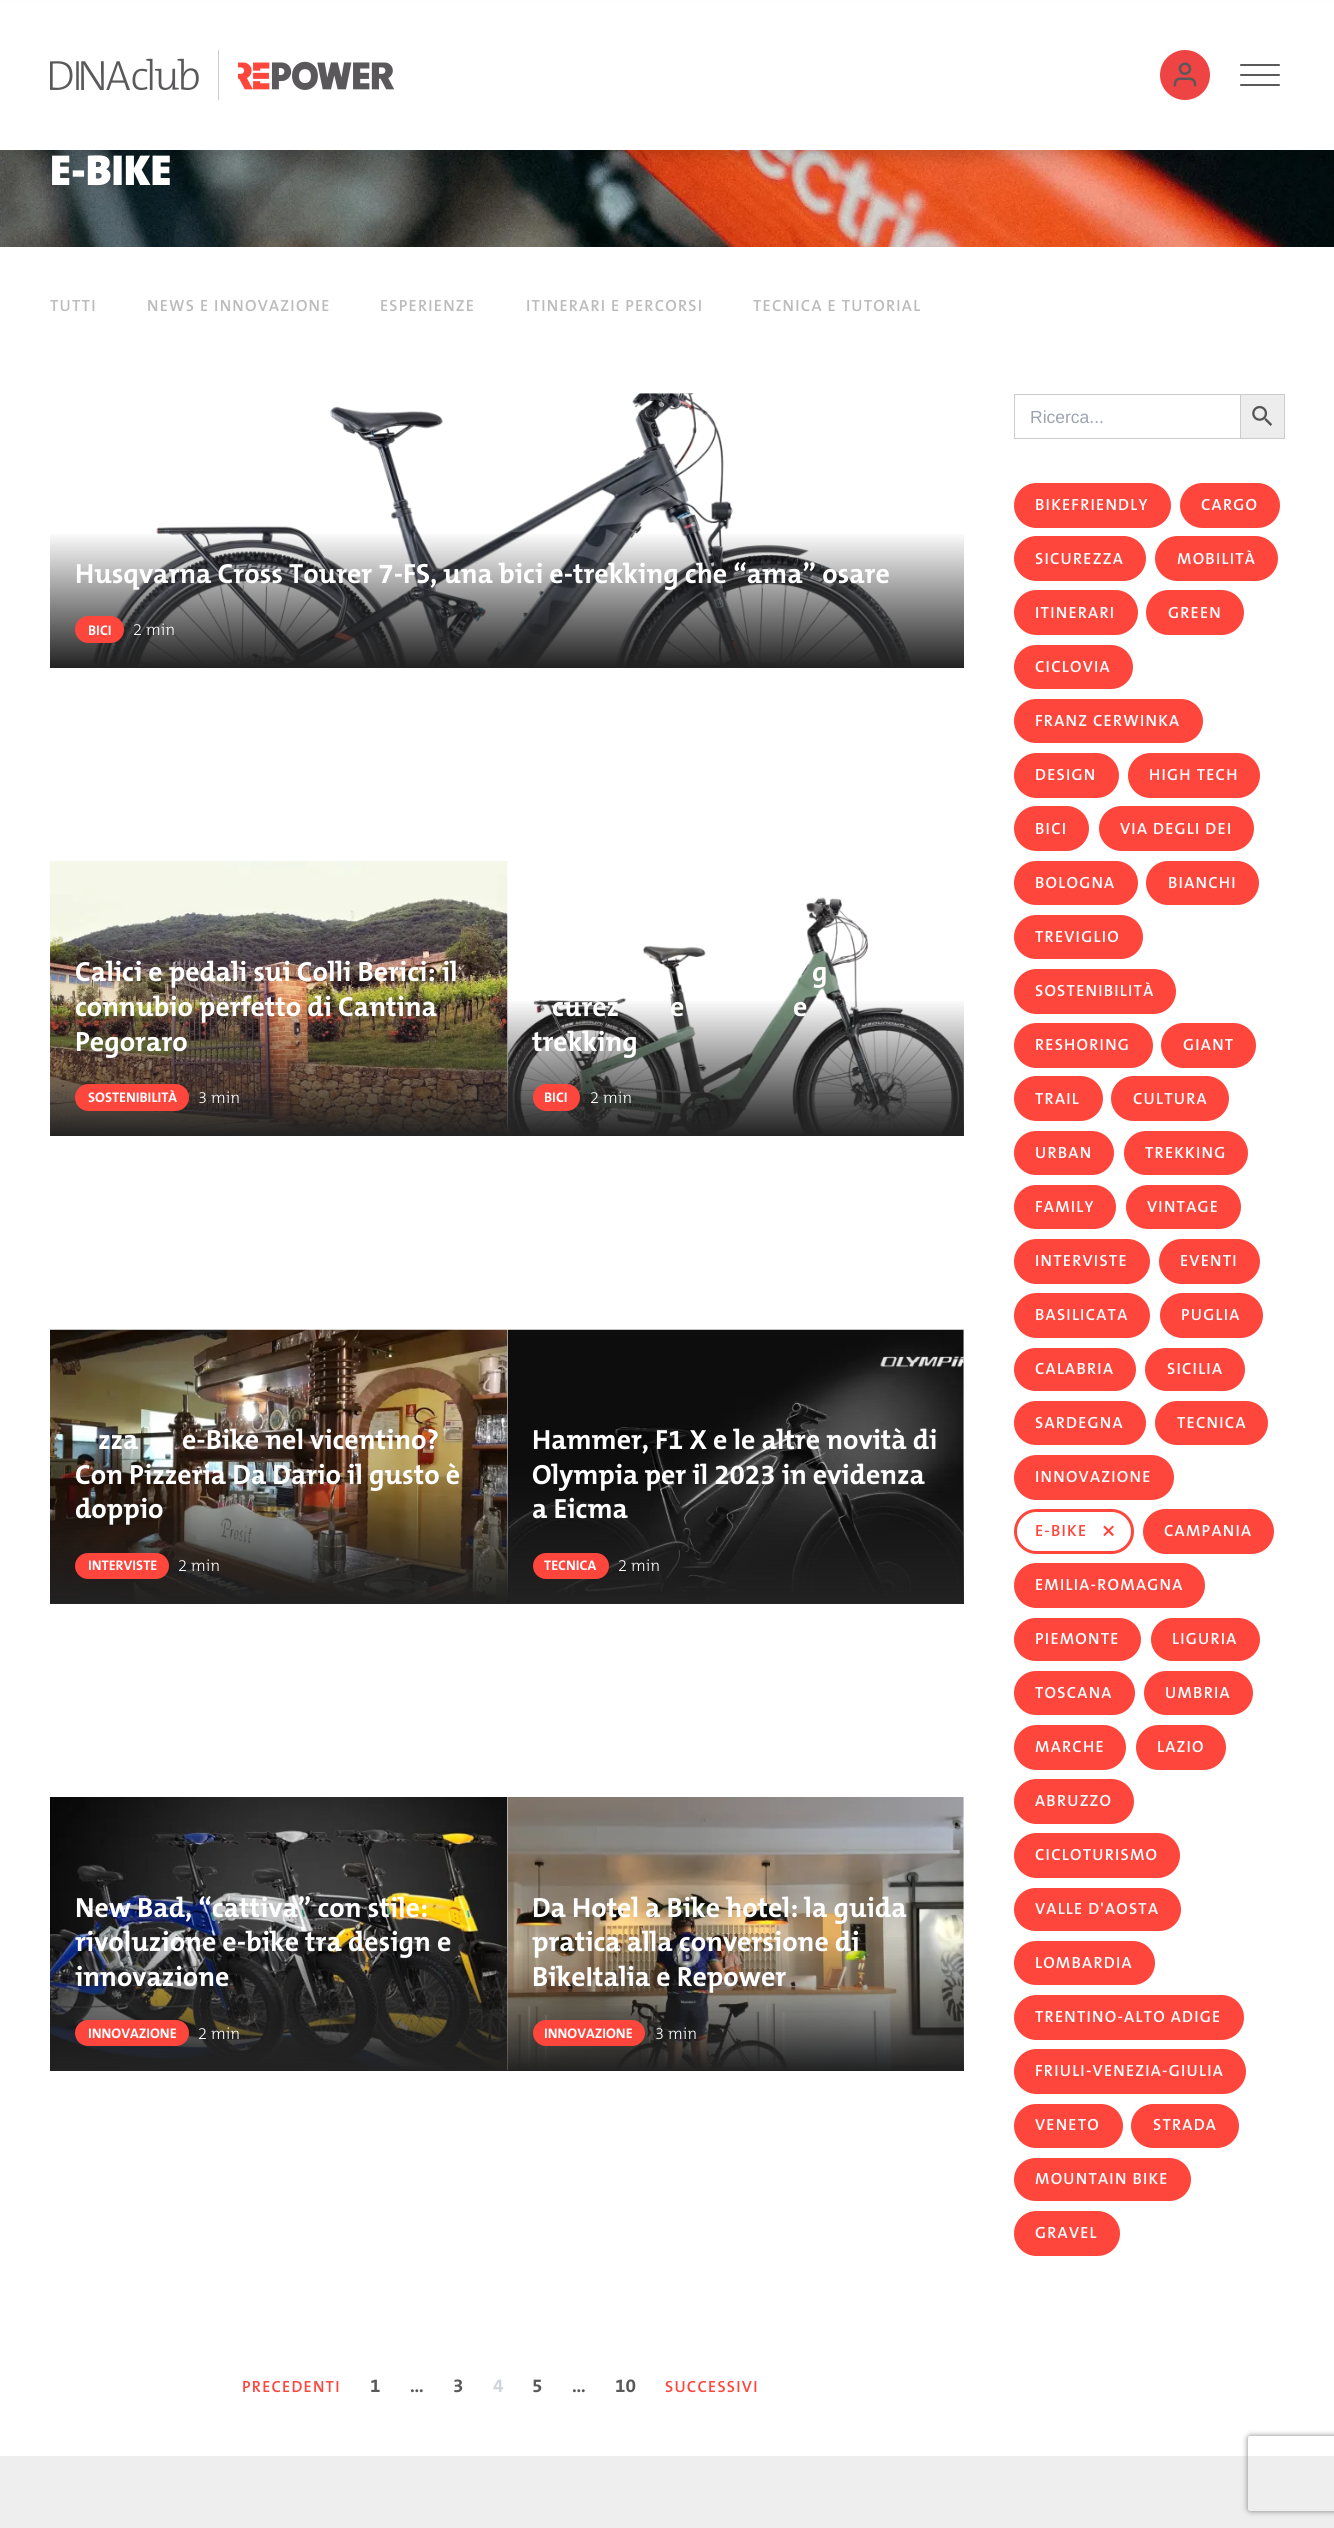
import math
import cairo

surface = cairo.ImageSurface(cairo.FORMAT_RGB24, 1334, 2528)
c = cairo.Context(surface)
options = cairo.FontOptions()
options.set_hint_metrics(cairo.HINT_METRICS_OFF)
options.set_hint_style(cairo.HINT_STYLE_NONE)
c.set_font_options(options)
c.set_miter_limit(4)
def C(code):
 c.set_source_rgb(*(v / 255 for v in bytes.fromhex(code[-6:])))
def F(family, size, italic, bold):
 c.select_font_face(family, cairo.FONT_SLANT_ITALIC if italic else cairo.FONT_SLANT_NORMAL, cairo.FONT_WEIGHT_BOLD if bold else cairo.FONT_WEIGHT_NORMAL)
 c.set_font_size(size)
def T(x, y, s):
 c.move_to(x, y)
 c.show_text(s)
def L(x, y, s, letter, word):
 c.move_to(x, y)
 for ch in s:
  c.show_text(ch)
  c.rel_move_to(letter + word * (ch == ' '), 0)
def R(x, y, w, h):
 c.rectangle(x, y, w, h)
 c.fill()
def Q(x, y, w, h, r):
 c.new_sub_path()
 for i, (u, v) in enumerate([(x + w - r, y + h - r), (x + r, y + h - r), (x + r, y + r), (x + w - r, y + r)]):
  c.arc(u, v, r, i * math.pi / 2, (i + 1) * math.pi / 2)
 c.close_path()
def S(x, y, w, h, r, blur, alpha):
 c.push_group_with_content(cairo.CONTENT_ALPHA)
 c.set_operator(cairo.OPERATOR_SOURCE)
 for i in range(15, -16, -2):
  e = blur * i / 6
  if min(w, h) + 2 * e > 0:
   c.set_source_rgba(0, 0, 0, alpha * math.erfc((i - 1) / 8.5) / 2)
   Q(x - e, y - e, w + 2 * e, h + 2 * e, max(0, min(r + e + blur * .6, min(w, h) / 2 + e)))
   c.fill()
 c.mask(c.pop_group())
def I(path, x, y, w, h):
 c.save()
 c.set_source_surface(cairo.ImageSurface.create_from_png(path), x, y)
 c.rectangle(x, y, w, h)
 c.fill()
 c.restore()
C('ffffff')
c.paint()
I('4.png',0,150,1334,97)
C('000000')
S(3,8,1330,145,0,4,.05)
S(4,16,1327,143,0,9.5,.1)
C('ffffff')
R(0,2,1334,148)
I('1.png',50,58,149,32)
C('cccccc')
R(218,50,1,50)
I('2.png',238,61,157,29)
C('ef4444')
c.arc(1185,75,25,0,2 * math.pi)
c.fill()
I('3.png',1173,62,24,25)
C('5a585a')
Q(1240,64,40,2,1)
c.fill()
Q(1240,74,40,2,1)
c.fill()
Q(1240,84,40,2,1)
c.fill()
F('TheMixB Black',43.5,0,0)
C('ffffff')
T(50,185,'E-BIKE')
F('TheMixB SemiBold',16.25,0,0)
C('bcbcbc')
L(50,311,'TUTTI',1.25,0)
L(147,311,'NEWS E INNOVAZIONE',1.25,0)
L(380,311,'ESPERIENZE',1.25,0)
L(526,311,'ITINERARI E PERCORSI',1.25,0)
L(753,311,'TECNICA E TUTORIAL',1.25,0)
I('5.png',92,393,820,274)
gradient = cairo.LinearGradient(507,394,507,668)
gradient.add_color_stop_rgba(0,0,0,0,0)
gradient.add_color_stop_rgba(.5,0.133,0.133,0.133,0)
gradient.add_color_stop_rgba(1,0.133,0.133,0.133,1)
c.set_source(gradient)
R(50,534,914,134)
F('TheMixB',27.9,0,1)
C('ffffff')
T(75,583,'Husqvarna Cross Tourer 7-FS, una bici e-trekking che “ama” osare')
C('ff463c')
Q(75,616,49,27,13.5)
c.fill()
F('TheMixB',14,0,1)
C('ffffff')
T(88,635,'BICI')
F('TheMixB Light',16.5,0,0)
T(133,635,'2 min')
I('6.png',50,861,458,274)
gradient = cairo.LinearGradient(279,861,279,1136)
gradient.add_color_stop_rgba(0,0,0,0,0)
gradient.add_color_stop_rgba(.5,0.133,0.133,0.133,0)
gradient.add_color_stop_rgba(1,0.133,0.133,0.133,1)
c.set_source(gradient)
R(50,1001,458,135)
F('TheMixB',27.9,0,1)
C('ffffff')
T(75,981,'Calici e pedali sui Colli Berici: il')
T(75,1016,'connubio perfetto di Cantina')
T(75,1051,'Pegoraro')
C('ff463c')
Q(75,1084,114,27,13.5)
c.fill()
F('TheMixB',14,0,1)
C('ffffff')
T(88,1102,'SOSTENIBILITÀ')
F('TheMixB Light',16.5,0,0)
T(198,1103,'3 min')
I('7.png',507,897,457,238)
gradient = cairo.LinearGradient(736,861,736,1136)
gradient.add_color_stop_rgba(0,0,0,0,0)
gradient.add_color_stop_rgba(.5,0.133,0.133,0.133,0)
gradient.add_color_stop_rgba(1,0.133,0.133,0.133,1)
c.set_source(gradient)
R(508,1001,456,135)
F('TheMixB',27.9,0,1)
C('ffffff')
T(812,981,'g')
T(552,1016,'curez')
T(670,1016,'e')
T(793,1016,'e')
T(532,1051,'trekking')
C('ff463c')
Q(533,1084,47,27,13.5)
c.fill()
F('TheMixB',14,0,1)
C('ffffff')
T(544,1102,'BICI')
F('TheMixB Light',16.5,0,0)
T(590,1103,'2 min')
I('8.png',50,1329,458,274)
gradient = cairo.LinearGradient(279,1330,279,1604)
gradient.add_color_stop_rgba(0,0,0,0,0)
gradient.add_color_stop_rgba(.5,0.133,0.133,0.133,0)
gradient.add_color_stop_rgba(1,0.133,0.133,0.133,1)
c.set_source(gradient)
R(50,1470,458,134)
F('TheMixB',27.9,0,1)
C('ffffff')
T(98,1449,'zza')
T(182,1449,'e-Bike nel vicentino?')
T(75,1484,'Con Pizzeria Da Dario il gusto è')
T(75,1518,'doppio')
C('ff463c')
Q(75,1553,94,26,13)
c.fill()
F('TheMixB',14,0,1)
C('ffffff')
T(88,1570,'INTERVISTE')
F('TheMixB Light',16.5,0,0)
T(178,1571,'2 min')
I('9.png',507,1329,457,274)
gradient = cairo.LinearGradient(736,1330,736,1604)
gradient.add_color_stop_rgba(0,0,0,0,0)
gradient.add_color_stop_rgba(.5,0.133,0.133,0.133,0)
gradient.add_color_stop_rgba(1,0.133,0.133,0.133,1)
c.set_source(gradient)
R(508,1470,456,134)
F('TheMixB',27.9,0,1)
C('ffffff')
T(532,1449,'Hammer, F1 X e le altre novità di')
T(532,1484,'Olympia per il 2023 in evidenza')
T(532,1518,'a Eicma')
C('ff463c')
Q(533,1553,76,26,13)
c.fill()
F('TheMixB',14,0,1)
C('ffffff')
T(544,1570,'TECNICA')
F('TheMixB Light',16.5,0,0)
T(618,1571,'2 min')
I('10.png',50,1797,458,273)
gradient = cairo.LinearGradient(279,1798,279,2071)
gradient.add_color_stop_rgba(0,0,0,0,0)
gradient.add_color_stop_rgba(.5,0.133,0.133,0.133,0)
gradient.add_color_stop_rgba(1,0.133,0.133,0.133,1)
c.set_source(gradient)
R(50,1937,458,134)
F('TheMixB',27.9,0,1)
C('ffffff')
T(75,1917,'New Bad, “cattiva” con stile:')
T(75,1951,'rivoluzione e-bike tra design e')
T(75,1986,'innovazione')
C('ff463c')
Q(75,2020,114,26,13)
c.fill()
F('TheMixB',14,0,1)
C('ffffff')
T(88,2038,'INNOVAZIONE')
F('TheMixB Light',16.5,0,0)
T(198,2039,'2 min')
I('11.png',507,1797,457,274)
gradient = cairo.LinearGradient(736,1798,736,2071)
gradient.add_color_stop_rgba(0,0,0,0,0)
gradient.add_color_stop_rgba(.5,0.133,0.133,0.133,0)
gradient.add_color_stop_rgba(1,0.133,0.133,0.133,1)
c.set_source(gradient)
R(508,1937,456,134)
F('TheMixB',27.9,0,1)
C('ffffff')
T(532,1917,'Da Hotel a Bike hotel: la guida')
T(532,1951,'pratica alla conversione di')
T(532,1986,'BikeItalia e Repower')
C('ff463c')
Q(533,2020,112,26,13)
c.fill()
F('TheMixB',14,0,1)
C('ffffff')
T(544,2038,'INNOVAZIONE')
F('TheMixB Light',16.5,0,0)
T(655,2039,'3 min')
C('cccccc')
R(1014,394,226,1)
R(1014,438,226,1)
R(1014,394,1,45)
F('Liberation Sans',17.5,0,0)
C('9ca3af')
T(1030,423,'Ricerca...')
C('ededed')
c.rectangle(1240.5,394.5,44,44)
c.fill_preserve()
C('cccccc')
c.set_line_width(1)
c.stroke()
I('12.png',1252,405,21,21)
C('ff463c')
Q(1014,483,157,45,22.5)
c.fill()
F('TheMixB SemiBold',16.25,0,0)
C('ffffff')
L(1035,510,'BIKEFRIENDLY',1.25,0)
C('ff463c')
Q(1180,483,100,45,22.5)
c.fill()
C('ffffff')
L(1201,510,'CARGO',1.25,0)
C('ff463c')
Q(1014,536,132,45,22.5)
c.fill()
C('ffffff')
L(1035,564,'SICUREZZA',1.25,0)
C('ff463c')
Q(1155,536,123,45,22.5)
c.fill()
C('ffffff')
L(1177,564,'MOBILITÀ',1.25,0)
C('ff463c')
Q(1014,590,124,45,22.5)
c.fill()
C('ffffff')
L(1035,618,'ITINERARI',1.25,0)
C('ff463c')
Q(1146,590,98,45,22.5)
c.fill()
C('ffffff')
L(1168,618,'GREEN',1.25,0)
C('ff463c')
Q(1014,645,119,44,22)
c.fill()
C('ffffff')
L(1035,672,'CICLOVIA',1.25,0)
C('ff463c')
Q(1014,699,189,44,22)
c.fill()
C('ffffff')
L(1035,726,'FRANZ CERWINKA',1.25,0)
C('ff463c')
Q(1014,753,105,45,22.5)
c.fill()
C('ffffff')
L(1035,780,'DESIGN',1.25,0)
C('ff463c')
Q(1128,753,132,45,22.5)
c.fill()
C('ffffff')
L(1149,780,'HIGH TECH',1.25,0)
C('ff463c')
Q(1014,806,75,45,22.5)
c.fill()
C('ffffff')
L(1035,834,'BICI',1.25,0)
C('ff463c')
Q(1099,806,155,45,22.5)
c.fill()
C('ffffff')
L(1120,834,'VIA DEGLI DEI',1.25,0)
C('ff463c')
Q(1014,861,124,44,22)
c.fill()
C('ffffff')
L(1035,888,'BOLOGNA',1.25,0)
C('ff463c')
Q(1146,861,113,44,22)
c.fill()
C('ffffff')
L(1168,888,'BIANCHI',1.25,0)
C('ff463c')
Q(1014,915,129,44,22)
c.fill()
C('ffffff')
L(1035,942,'TREVIGLIO',1.25,0)
C('ff463c')
Q(1014,969,162,45,22.5)
c.fill()
C('ffffff')
L(1035,996,'SOSTENIBILITÀ',1.25,0)
C('ff463c')
Q(1014,1023,139,45,22.5)
c.fill()
C('ffffff')
L(1035,1050,'RESHORING',1.25,0)
C('ff463c')
Q(1161,1023,95,45,22.5)
c.fill()
C('ffffff')
L(1183,1050,'GIANT',1.25,0)
C('ff463c')
Q(1014,1076,89,45,22.5)
c.fill()
C('ffffff')
L(1035,1104,'TRAIL',1.25,0)
C('ff463c')
Q(1111,1076,118,45,22.5)
c.fill()
C('ffffff')
L(1133,1104,'CULTURA',1.25,0)
C('ff463c')
Q(1014,1131,100,44,22)
c.fill()
C('ffffff')
L(1035,1158,'URBAN',1.25,0)
C('ff463c')
Q(1124,1131,124,44,22)
c.fill()
C('ffffff')
L(1145,1158,'TREKKING',1.25,0)
C('ff463c')
Q(1014,1185,102,44,22)
c.fill()
C('ffffff')
L(1035,1212,'FAMILY',1.25,0)
C('ff463c')
Q(1126,1185,115,44,22)
c.fill()
C('ffffff')
L(1147,1212,'VINTAGE',1.25,0)
C('ff463c')
Q(1014,1239,136,45,22.5)
c.fill()
C('ffffff')
L(1035,1266,'INTERVISTE',1.25,0)
C('ff463c')
Q(1159,1239,101,45,22.5)
c.fill()
C('ffffff')
L(1180,1266,'EVENTI',1.25,0)
C('ff463c')
Q(1014,1293,136,45,22.5)
c.fill()
C('ffffff')
L(1035,1320,'BASILICATA',1.25,0)
C('ff463c')
Q(1160,1293,103,45,22.5)
c.fill()
C('ffffff')
L(1181,1320,'PUGLIA',1.25,0)
C('ff463c')
Q(1014,1348,122,43,21.5)
c.fill()
C('ffffff')
L(1035,1374,'CALABRIA',1.25,0)
C('ff463c')
Q(1145,1348,100,43,21.5)
c.fill()
C('ffffff')
L(1167,1374,'SICILIA',1.25,0)
C('ff463c')
Q(1014,1401,132,44,22)
c.fill()
C('ffffff')
L(1035,1428,'SARDEGNA',1.25,0)
C('ff463c')
Q(1155,1401,113,44,22)
c.fill()
C('ffffff')
L(1177,1428,'TECNICA',1.25,0)
C('ff463c')
Q(1014,1455,160,45,22.5)
c.fill()
C('ffffff')
L(1035,1482,'INNOVAZIONE',1.25,0)
Q(1015.5,1510.5,117,42,21)
C('ff463c')
c.set_line_width(3)
c.stroke()
L(1035,1536,'E-BIKE',1.25,0)
F('TheMixB SemiBold',24,0,0)
L(1102,1538,'×',1.25,0)
Q(1143,1509,131,45,22.5)
c.fill()
F('TheMixB SemiBold',16.25,0,0)
C('ffffff')
L(1164,1536,'CAMPANIA',1.25,0)
C('ff463c')
Q(1014,1563,191,45,22.5)
c.fill()
C('ffffff')
L(1035,1590,'EMILIA-ROMAGNA',1.25,0)
C('ff463c')
Q(1014,1618,127,43,21.5)
c.fill()
C('ffffff')
L(1035,1644,'PIEMONTE',1.25,0)
C('ff463c')
Q(1151,1618,109,43,21.5)
c.fill()
C('ffffff')
L(1172,1644,'LIGURIA',1.25,0)
C('ff463c')
Q(1014,1671,121,44,22)
c.fill()
C('ffffff')
L(1035,1698,'TOSCANA',1.25,0)
C('ff463c')
Q(1144,1671,109,44,22)
c.fill()
C('ffffff')
L(1165,1698,'UMBRIA',1.25,0)
C('ff463c')
Q(1014,1725,112,45,22.5)
c.fill()
C('ffffff')
L(1035,1752,'MARCHE',1.25,0)
C('ff463c')
Q(1136,1725,90,45,22.5)
c.fill()
C('ffffff')
L(1157,1752,'LAZIO',1.25,0)
C('ff463c')
Q(1014,1779,120,45,22.5)
c.fill()
C('ffffff')
L(1035,1806,'ABRUZZO',1.25,0)
C('ff463c')
Q(1014,1833,166,45,22.5)
c.fill()
C('ffffff')
L(1035,1860,'CICLOTURISMO',1.25,0)
C('ff463c')
Q(1014,1888,167,43,21.5)
c.fill()
C('ffffff')
L(1035,1914,'VALLE D\'AOSTA',1.25,0)
C('ff463c')
Q(1014,1941,141,44,22)
c.fill()
C('ffffff')
L(1035,1968,'LOMBARDIA',1.25,0)
C('ff463c')
Q(1014,1995,230,45,22.5)
c.fill()
C('ffffff')
L(1035,2022,'TRENTINO-ALTO ADIGE',1.25,0)
C('ff463c')
Q(1014,2049,232,45,22.5)
c.fill()
C('ffffff')
L(1035,2076,'FRIULI-VENEZIA-GIULIA',1.25,0)
C('ff463c')
Q(1014,2104,109,44,22)
c.fill()
C('ffffff')
L(1035,2130,'VENETO',1.25,0)
C('ff463c')
Q(1131,2104,108,44,22)
c.fill()
C('ffffff')
L(1153,2130,'STRADA',1.25,0)
C('ff463c')
Q(1014,2158,177,43,21.5)
c.fill()
C('ffffff')
L(1035,2184,'MOUNTAIN BIKE',1.25,0)
C('ff463c')
Q(1014,2211,106,45,22.5)
c.fill()
C('ffffff')
L(1035,2238,'GRAVEL',1.25,0)
C('ff463c')
L(242,2392,'PRECEDENTI',1.25,0)
F('TheMixB',19,0,1)
C('5a585a')
T(370,2392,'1')
T(410,2392,'…')
T(453,2392,'3')
C('d1d5db')
T(493,2392,'4')
C('5a585a')
T(532,2392,'5')
T(572,2392,'…')
T(615,2392,'10')
F('TheMixB SemiBold',16.25,0,0)
C('ff463c')
L(665,2392,'SUCCESSIVI',1.25,0)
C('eeeeee')
R(0,2456,1334,72)
c.save()
c.set_fill_rule(cairo.FILL_RULE_EVEN_ODD)
c.new_path()
c.move_to(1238,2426)
c.line_to(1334,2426)
c.line_to(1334,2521)
c.line_to(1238,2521)
c.close_path()
c.move_to(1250.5,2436)
c.line_to(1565.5,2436)
c.curve_to(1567,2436,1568,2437,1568,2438.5)
c.line_to(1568,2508.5)
c.curve_to(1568,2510,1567,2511,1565.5,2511)
c.line_to(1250.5,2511)
c.curve_to(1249,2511,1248,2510,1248,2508.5)
c.line_to(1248,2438.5)
c.curve_to(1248,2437,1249,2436,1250.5,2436)
c.close_path()
c.clip()
C('808080')
S(1248,2436,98,75,2.5,3,1)
c.restore()
surface.write_to_png('o.png')
